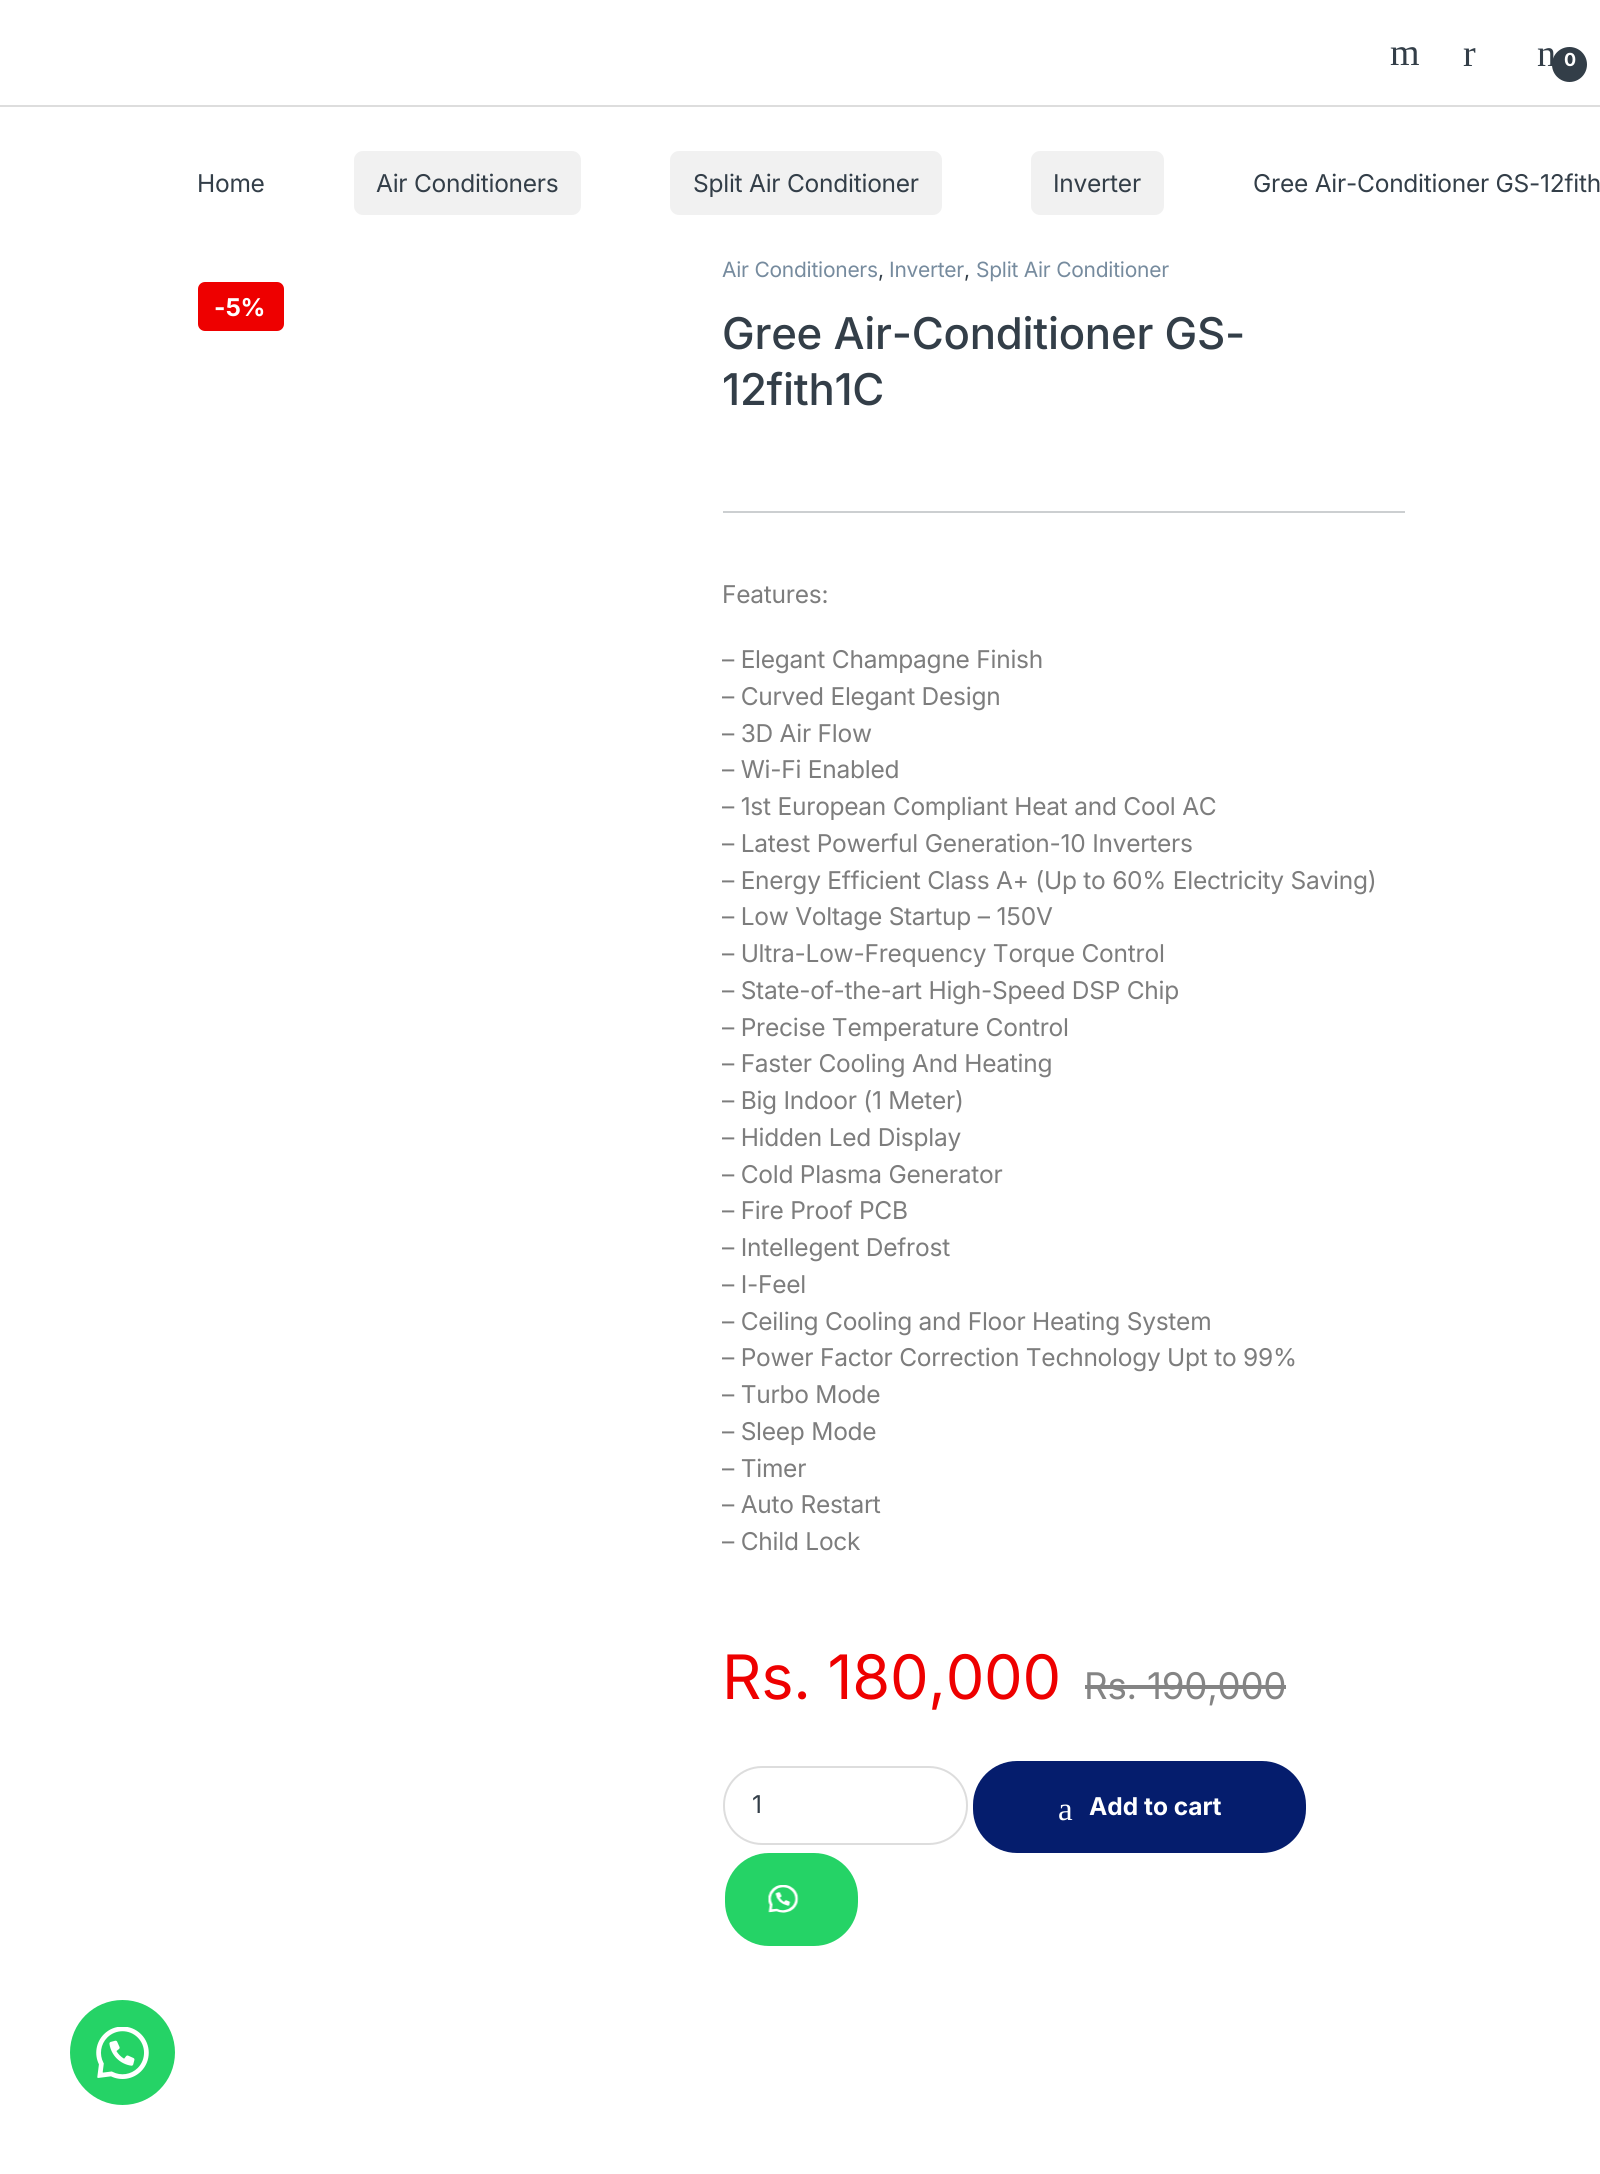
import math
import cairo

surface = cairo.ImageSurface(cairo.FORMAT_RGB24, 1600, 2174)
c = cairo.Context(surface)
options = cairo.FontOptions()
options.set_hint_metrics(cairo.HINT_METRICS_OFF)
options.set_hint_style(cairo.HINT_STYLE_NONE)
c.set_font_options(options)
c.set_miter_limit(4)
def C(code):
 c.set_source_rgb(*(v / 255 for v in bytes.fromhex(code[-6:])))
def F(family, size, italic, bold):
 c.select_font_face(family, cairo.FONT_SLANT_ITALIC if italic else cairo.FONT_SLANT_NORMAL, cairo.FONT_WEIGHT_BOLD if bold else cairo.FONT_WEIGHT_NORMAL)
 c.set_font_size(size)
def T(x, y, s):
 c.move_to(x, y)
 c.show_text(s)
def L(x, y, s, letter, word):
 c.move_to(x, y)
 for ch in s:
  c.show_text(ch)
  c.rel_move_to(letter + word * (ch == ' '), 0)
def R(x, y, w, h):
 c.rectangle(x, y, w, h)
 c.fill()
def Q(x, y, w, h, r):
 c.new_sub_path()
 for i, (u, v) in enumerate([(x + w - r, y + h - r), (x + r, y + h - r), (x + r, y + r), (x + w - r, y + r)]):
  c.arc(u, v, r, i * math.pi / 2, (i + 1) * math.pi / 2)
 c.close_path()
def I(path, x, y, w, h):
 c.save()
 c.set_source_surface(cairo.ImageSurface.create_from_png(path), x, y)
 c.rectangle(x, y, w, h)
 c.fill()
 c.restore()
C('ffffff')
c.paint()
C('dddddd')
R(0,105,1600,2)
F('Liberation Serif',38,0,0)
C('333e48')
L(1390,65,'m',-.25,0)
L(1463,66,'r',-.25,0)
L(1537,66,'n',-.25,0)
c.new_path()
c.arc(1569.5,64.5,17.5,0,2 * math.pi)
c.fill()
F('Inter',18,0,1)
C('ffffff')
L(1564,66,'0',-.25,0)
F('Inter',24.5,0,0)
C('333e48')
L(197,192,'Home',-.25,0)
C('f1f1f1')
Q(354,151,227,64,9)
c.fill()
C('333e48')
L(376,192,'Air Conditioners',-.25,0)
C('f1f1f1')
Q(670,151,272,64,9)
c.fill()
C('333e48')
L(693,192,'Split Air Conditioner',-.25,0)
C('f1f1f1')
Q(1031,151,133,64,9)
c.fill()
C('333e48')
L(1053,192,'Inverter',-.25,0)
L(1253,192,'Gree Air-Conditioner GS-12fith',-.25,0)
C('ee0000')
Q(198,282,86,49,7)
c.fill()
F('Inter',24.5,0,1)
C('ffffff')
L(214,316,'-5%',-.25,0)
F('Inter',21,0,0)
C('768b9e')
L(722,277,'Air Conditioners',-.25,0)
C('333e48')
L(878,277,',',-.25,0)
C('768b9e')
L(889,277,'Inverter',-.25,0)
C('333e48')
L(964,277,',',-.25,0)
C('768b9e')
L(976,277,'Split Air Conditioner',-.25,0)
F('Inter Medium',43.75,0,0)
C('333e48')
L(722,349,'Gree Air-Conditioner GS-',-.25,0)
L(722,405,'12fith1C',-.25,0)
C('cccfd1')
R(723,511,682,2)
F('Inter',24.5,0,0)
C('7d7d7d')
L(722,603,'Features:',-.25,0)
L(722,668,'– Elegant Champagne Finish',-.25,0)
L(722,705,'– Curved Elegant Design',-.25,0)
L(722,742,'– 3D Air Flow',-.25,0)
L(722,778,'– Wi-Fi Enabled',-.25,0)
L(722,815,'– 1st European Compliant Heat and Cool AC',-.25,0)
L(722,852,'– Latest Powerful Generation-10 Inverters',-.25,0)
L(722,889,'– Energy Efficient Class A+ (Up to 60% Electricity Saving)',-.25,0)
L(722,925,'– Low Voltage Startup – 150V',-.25,0)
L(722,962,'– Ultra-Low-Frequency Torque Control',-.25,0)
L(722,999,'– State-of-the-art High-Speed DSP Chip',-.25,0)
L(722,1036,'– Precise Temperature Control',-.25,0)
L(722,1072,'– Faster Cooling And Heating',-.25,0)
L(722,1109,'– Big Indoor (1 Meter)',-.25,0)
L(722,1146,'– Hidden Led Display',-.25,0)
L(722,1183,'– Cold Plasma Generator',-.25,0)
L(722,1219,'– Fire Proof PCB',-.25,0)
L(722,1256,'– Intellegent Defrost',-.25,0)
L(722,1293,'– I-Feel',-.25,0)
L(722,1330,'– Ceiling Cooling and Floor Heating System',-.25,0)
L(722,1366,'– Power Factor Correction Technology Upt to 99%',-.25,0)
L(722,1403,'– Turbo Mode',-.25,0)
L(722,1440,'– Sleep Mode',-.25,0)
L(722,1477,'– Timer',-.25,0)
L(722,1513,'– Auto Restart',-.25,0)
L(722,1550,'– Child Lock',-.25,0)
F('Inter',61.25,0,0)
C('ee0000')
L(722,1699,'Rs. 180,000',-.25,0)
F('Inter',36.75,0,0)
C('848484')
L(1084,1699,'Rs. 190,000',-.25,0)
R(1085,1685,201,4)
Q(724,1767,243,77,38)
C('dddddd')
c.stroke()
c.save()
c.rectangle(753,1783,159,42)
c.clip()
F('Inter',24.5,0,0)
C('333e48')
T(752,1813,'1')
c.restore()
C('051d6d')
Q(973,1761,333,92,44)
c.fill()
F('Liberation Serif',33,0,0)
C('ffffff')
T(1058,1820,'a')
F('Inter',24.5,0,1)
T(1089,1815,'Add to cart')
C('25d366')
Q(725,1853,133,93,44)
c.fill()
I('1.png',768,1885,31,28)
c.arc(122.5,2052.5,52.5,0,2 * math.pi)
c.fill()
I('2.png',96,2027,53,52)
surface.write_to_png('o.png')
